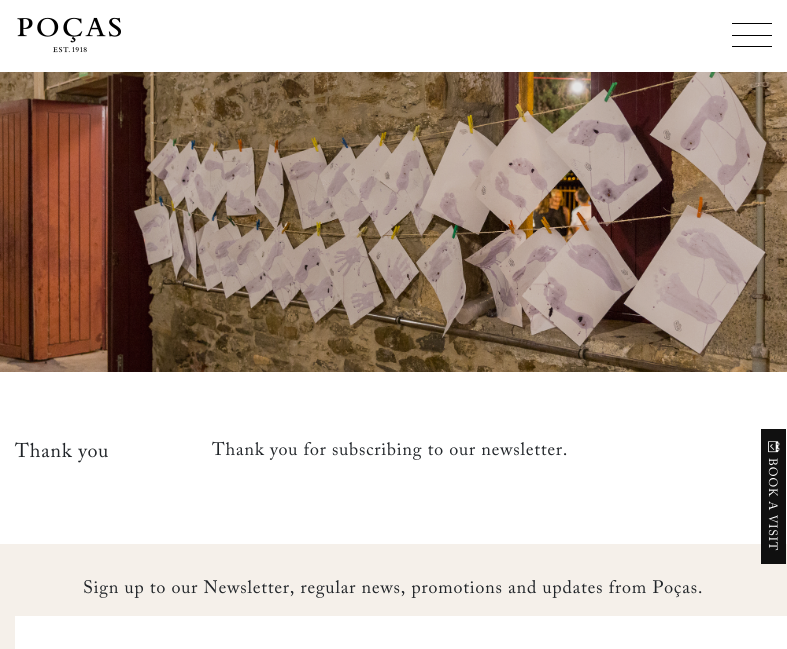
import math
import cairo

surface = cairo.ImageSurface(cairo.FORMAT_RGB24, 787, 649)
c = cairo.Context(surface)
options = cairo.FontOptions()
options.set_hint_metrics(cairo.HINT_METRICS_OFF)
options.set_hint_style(cairo.HINT_STYLE_NONE)
c.set_font_options(options)
c.set_miter_limit(4)
def C(code):
 c.set_source_rgb(*(v / 255 for v in bytes.fromhex(code[-6:])))
def R(x, y, w, h):
 c.rectangle(x, y, w, h)
 c.fill()
def I(path, x, y, w, h):
 c.save()
 c.set_source_surface(cairo.ImageSurface.create_from_png(path), x, y)
 c.rectangle(x, y, w, h)
 c.fill()
 c.restore()
C('ffffff')
c.paint()
I('1.png',17,17,104,36)
C('000000')
R(732,35,40,1)
R(732,23,40,1)
R(732,46,40,1)
I('2.png',0,72,787,300)
I('3.png',14,442,94,21)
I('4.png',212,441,355,19)
C('f5f0ea')
R(0,544,787,105)
I('5.png',84,580,618,18)
C('ffffff')
R(15,616,772,33)
C('101010')
R(761,429,25,135)
I('6.png',768,441,12,12)
I('7.png',768,458,10,93)
surface.write_to_png('o.png')
